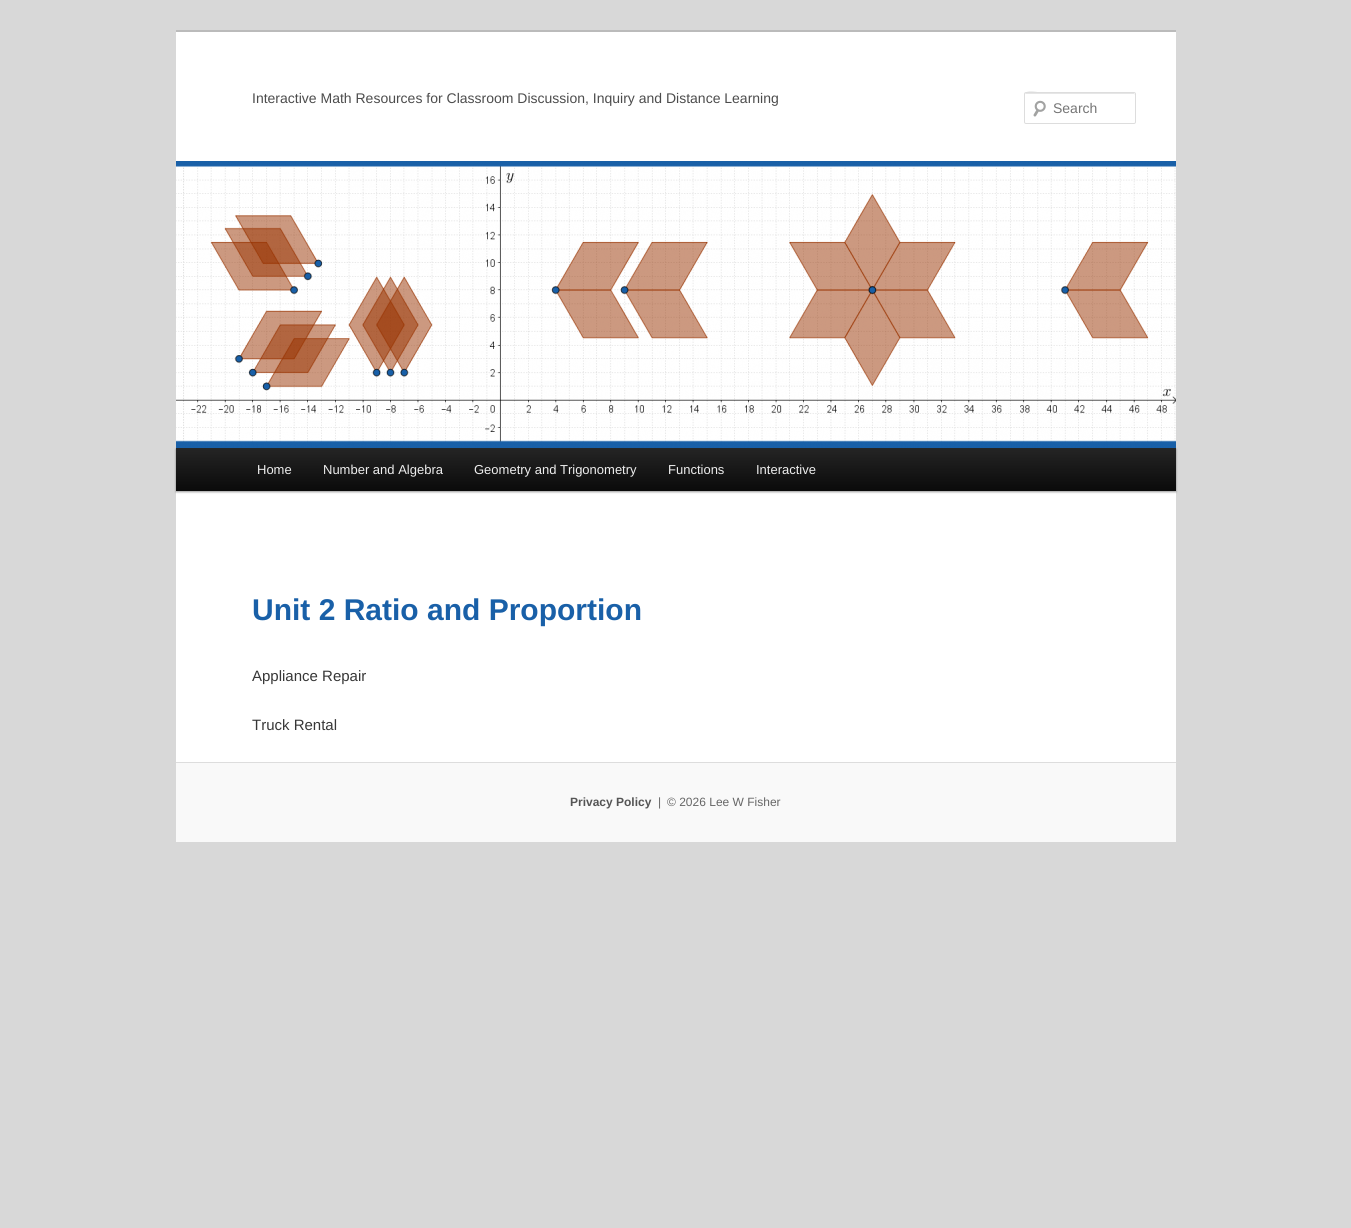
import math
import cairo

surface = cairo.ImageSurface(cairo.FORMAT_RGB24, 1351, 1228)
c = cairo.Context(surface)
options = cairo.FontOptions()
options.set_hint_metrics(cairo.HINT_METRICS_OFF)
options.set_hint_style(cairo.HINT_STYLE_NONE)
c.set_font_options(options)
c.set_miter_limit(4)
def C(code):
 c.set_source_rgb(*(v / 255 for v in bytes.fromhex(code[-6:])))
def F(family, size, italic, bold):
 c.select_font_face(family, cairo.FONT_SLANT_ITALIC if italic else cairo.FONT_SLANT_NORMAL, cairo.FONT_WEIGHT_BOLD if bold else cairo.FONT_WEIGHT_NORMAL)
 c.set_font_size(size)
def T(x, y, s):
 c.move_to(x, y)
 c.show_text(s)
def R(x, y, w, h):
 c.rectangle(x, y, w, h)
 c.fill()
def Q(x, y, w, h, r):
 c.new_sub_path()
 for i, (u, v) in enumerate([(x + w - r, y + h - r), (x + r, y + h - r), (x + r, y + r), (x + w - r, y + r)]):
  c.arc(u, v, r, i * math.pi / 2, (i + 1) * math.pi / 2)
 c.close_path()
def S(x, y, w, h, r, blur, alpha):
 c.push_group_with_content(cairo.CONTENT_ALPHA)
 c.set_operator(cairo.OPERATOR_SOURCE)
 for i in range(15, -16, -2):
  e = blur * i / 6
  if min(w, h) + 2 * e > 0:
   c.set_source_rgba(0, 0, 0, alpha * math.erfc((i - 1) / 8.5) / 2)
   Q(x - e, y - e, w + 2 * e, h + 2 * e, max(0, min(r + e + blur * .6, min(w, h) / 2 + e)))
   c.fill()
 c.mask(c.pop_group())
def I(path, x, y, w, h):
 c.save()
 c.set_source_surface(cairo.ImageSurface.create_from_png(path), x, y)
 c.rectangle(x, y, w, h)
 c.fill()
 c.restore()
C('d8d8d8')
c.paint()
C('ffffff')
R(176,32,1000,730)
C('bbbbbb')
R(176,30,1000,2)
F('Liberation Sans',14,0,0)
C('4c4c4c')
T(252,103,'Interactive Math Resources for Classroom Discussion, Inquiry and Distance Learning')
I('1.png',1033,100,13,17)
C('e6e6e6')
c.new_path()
c.move_to(1026,94)
c.line_to(1135,94)
c.line_to(1135,95)
c.line_to(1134,93)
c.line_to(1044,93)
c.curve_to(1040,93,1025,88,1025,95)
c.curve_to(1025,94,1025,94,1026,94)
c.close_path()
c.fill()
Q(1024.5,92.5,111,31,1.5)
C('dddddd')
c.set_line_width(1)
c.stroke()
C('757575')
T(1053,113,'Search')
C('000000')
S(176,449,1000,43,0,1,.4)
I('2.png',176,161,1000,287)
gradient = cairo.LinearGradient(676,448,676,491)
gradient.add_color_stop_rgba(0,0.145,0.145,0.145,1)
gradient.add_color_stop_rgba(1,0.039,0.039,0.039,1)
c.set_source(gradient)
R(176,448,1000,43)
F('Liberation Sans',13,0,0)
C('eeeeee')
T(257,474,'Home')
T(323,474,'Number and Algebra')
T(474,474,'Geometry and Trigonometry')
T(668,474,'Functions')
T(756,474,'Interactive')
F('Liberation Sans',30,0,1)
C('1960a8')
T(252,620,'Unit 2 Ratio and Proportion')
F('Liberation Sans',15,0,0)
C('373737')
T(252,681,'Appliance Repair')
T(252,730,'Truck Rental')
C('f9f9f9')
R(176,763,1000,79)
C('dddddd')
R(176,762,1000,1)
F('Liberation Sans',12,0,1)
C('555555')
T(570,806,'Privacy Policy')
F('Liberation Sans',12,0,0)
C('666666')
T(658,806,'|')
T(667,806,'© 2026 Lee W Fisher')
surface.write_to_png('o.png')
